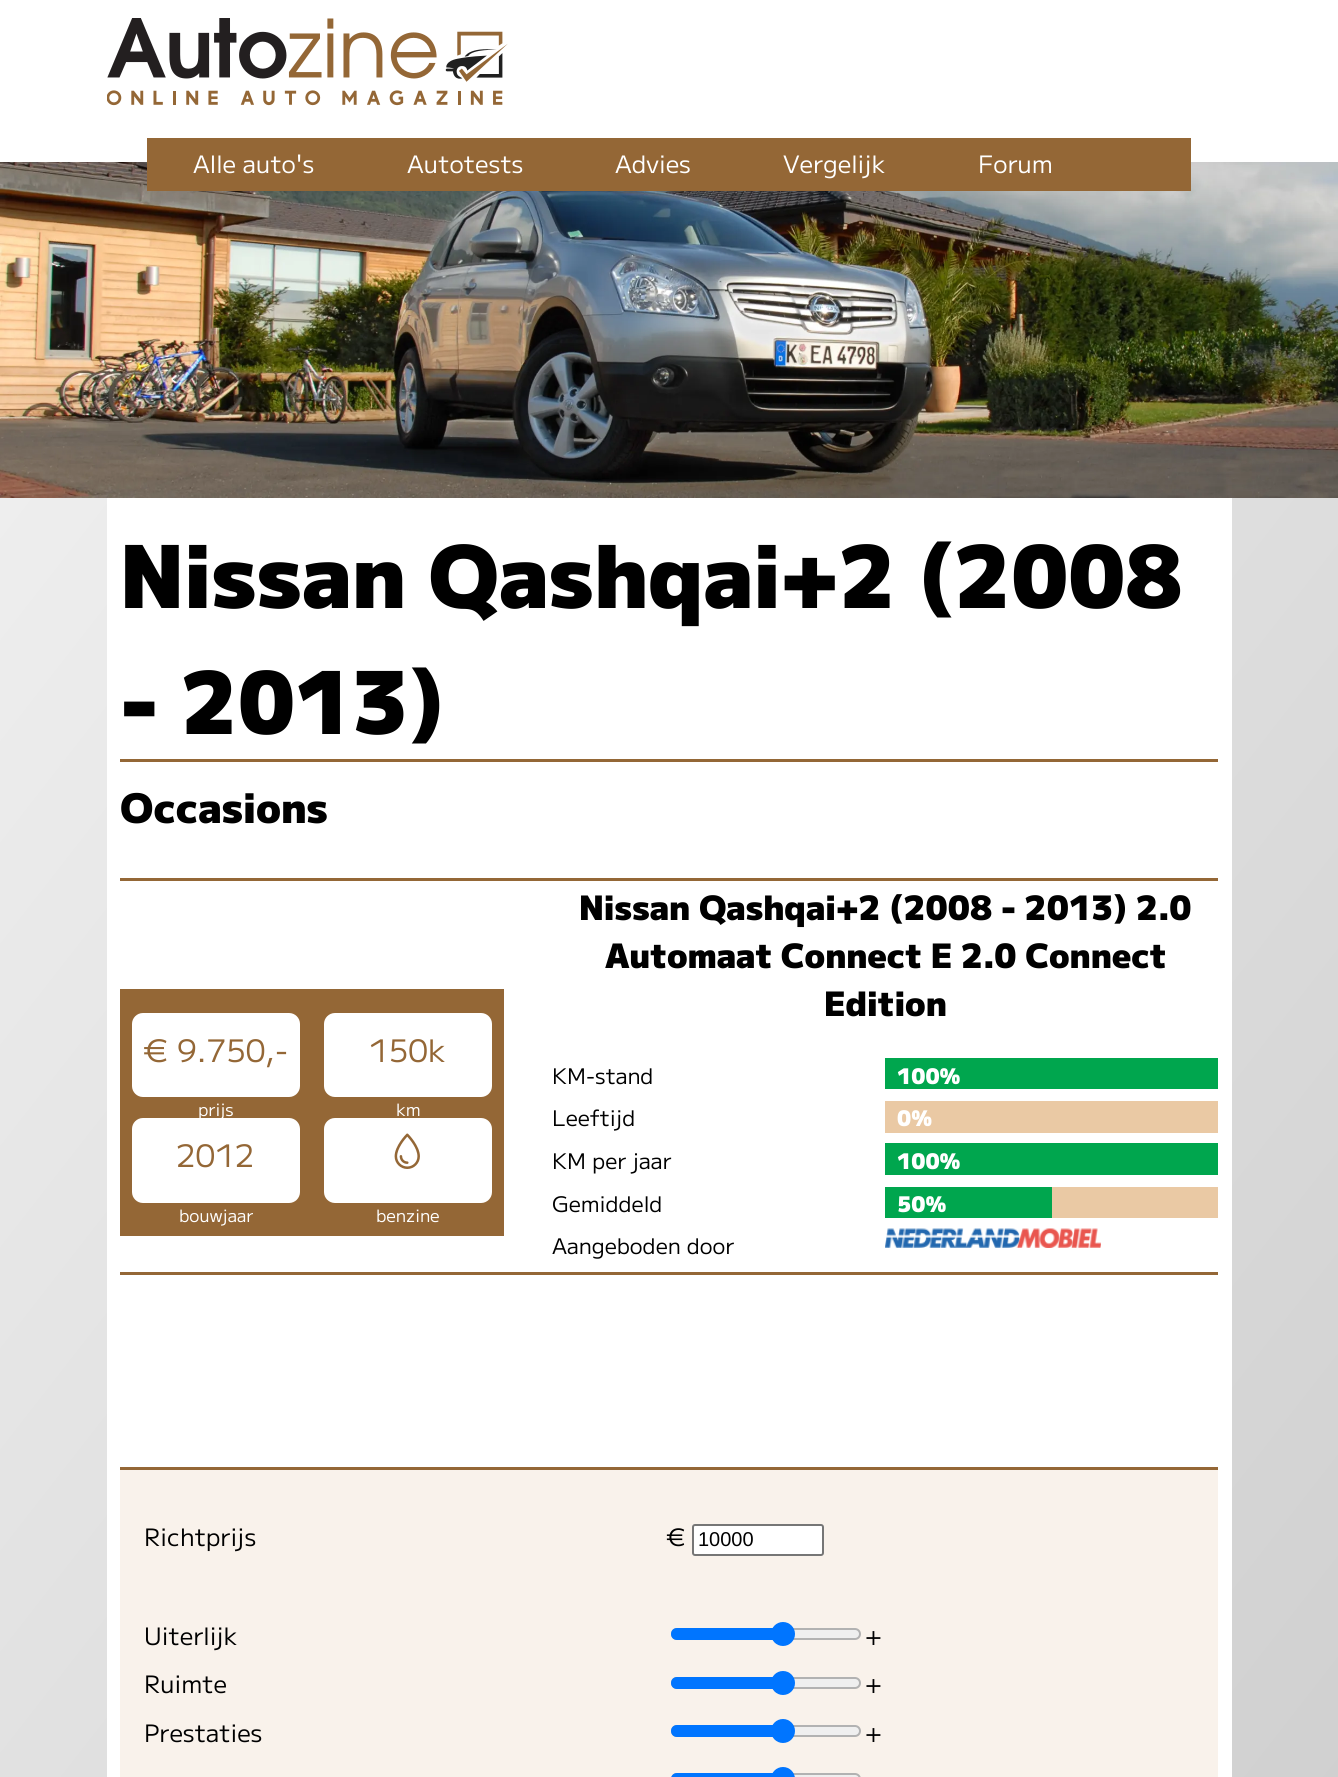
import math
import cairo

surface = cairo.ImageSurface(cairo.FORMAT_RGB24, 1338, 1777)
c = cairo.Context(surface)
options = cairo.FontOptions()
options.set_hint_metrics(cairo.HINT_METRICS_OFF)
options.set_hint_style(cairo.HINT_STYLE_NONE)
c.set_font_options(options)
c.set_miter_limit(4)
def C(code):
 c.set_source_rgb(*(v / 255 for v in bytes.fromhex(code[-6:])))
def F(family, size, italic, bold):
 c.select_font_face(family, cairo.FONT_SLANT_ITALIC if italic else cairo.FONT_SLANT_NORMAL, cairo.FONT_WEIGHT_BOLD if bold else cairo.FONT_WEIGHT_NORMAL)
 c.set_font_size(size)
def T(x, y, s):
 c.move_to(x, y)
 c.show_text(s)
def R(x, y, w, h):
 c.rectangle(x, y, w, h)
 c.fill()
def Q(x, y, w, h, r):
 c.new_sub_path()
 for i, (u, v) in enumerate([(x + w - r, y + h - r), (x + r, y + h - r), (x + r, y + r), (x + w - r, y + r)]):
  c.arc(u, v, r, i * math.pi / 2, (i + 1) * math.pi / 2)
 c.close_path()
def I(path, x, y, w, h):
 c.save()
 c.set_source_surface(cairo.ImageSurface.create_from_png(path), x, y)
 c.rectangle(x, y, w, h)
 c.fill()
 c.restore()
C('ffffff')
c.paint()
I('1.png',107,18,401,88)
I('2.png',0,162,1338,336)
C('946736')
R(147,138,1044,53)
F('M PLUS 1',24,0,0)
C('ffffff')
T(193,173,'Alle auto\'s')
T(407,173,'Autotests')
T(615,173,'Advies')
T(783,173,'Vergelijk')
T(978,173,'Forum')
gradient = cairo.LinearGradient(-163,706,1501,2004)
gradient.add_color_stop_rgba(0,0.933,0.933,0.933,1)
gradient.add_color_stop_rgba(1,0.8,0.8,0.8,1)
c.set_source(gradient)
R(0,498,1338,1279)
C('ffffff')
R(107,498,1125,1279)
C('946736')
R(120,759,1098,3)
F('M PLUS 1 Black',86.4,0,0)
C('000000')
T(120,608,'Nissan Qashqai+2 (2008')
T(120,734,'- 2013)')
F('M PLUS 1 Black',40.75,0,0)
T(120,823,'Occasions')
C('946736')
R(120,878,1098,3)
R(120,1272,1098,3)
R(120,989,384,247)
C('ffffff')
Q(132,1013,168,84,11)
c.fill()
F('M PLUS 1',31,0,0)
C('946736')
T(143,1062,'€ 9.750,-')
C('ffffff')
Q(324,1013,168,84,11)
c.fill()
C('946736')
T(369,1062,'150k')
F('M PLUS 1',17,0,0)
C('ffffff')
T(198,1116,'prijs')
T(396,1116,'km')
Q(132,1118,168,85,11)
c.fill()
F('M PLUS 1',31,0,0)
C('946736')
T(176,1167,'2012')
C('ffffff')
Q(324,1118,168,85,11)
c.fill()
I('3.png',394,1133,26,36)
F('M PLUS 1',17,0,0)
T(179,1222,'bouwjaar')
T(376,1222,'benzine')
F('M PLUS 1 Black',33.6,0,0)
C('000000')
T(579,920,'Nissan Qashqai+2 (2008 - 2013) 2.0')
T(605,968,'Automaat Connect E 2.0 Connect')
T(824,1016,'Edition')
F('M PLUS 1',21.5,0,0)
T(552,1084,'KM-stand')
C('00a64e')
R(885,1058,333,31)
F('M PLUS 1 Black',21.5,0,0)
C('ffffff')
T(897,1084,'100%')
F('M PLUS 1',21.5,0,0)
C('000000')
T(552,1126,'Leeftijd')
C('eac9a4')
R(885,1101,333,32)
F('M PLUS 1 Black',21.5,0,0)
C('ffffff')
T(897,1126,'0%')
F('M PLUS 1',21.5,0,0)
C('000000')
T(552,1169,'KM per jaar')
C('00a64e')
R(885,1143,333,32)
F('M PLUS 1 Black',21.5,0,0)
C('ffffff')
T(897,1169,'100%')
F('M PLUS 1',21.5,0,0)
C('000000')
T(552,1212,'Gemiddeld')
C('00a64e')
R(885,1187,167,31)
C('eac9a4')
R(1052,1187,166,31)
F('M PLUS 1 Black',21.5,0,0)
C('ffffff')
T(897,1212,'50%')
F('M PLUS 1',21.5,0,0)
C('000000')
T(552,1254,'Aangeboden door')
I('4.png',885,1228,216,20)
C('f9f2eb')
R(120,1470,1098,307)
C('946736')
R(120,1467,1098,3)
F('M PLUS 1',24,0,0)
C('000000')
T(144,1546,'Richtprijs')
T(666,1546,'€')
C('ffffff')
Q(693,1525,130,30,2)
c.fill_preserve()
C('767676')
c.stroke()
F('Liberation Sans',20,0,0)
C('000000')
T(698,1546,'10000')
F('M PLUS 1',24,0,0)
T(144,1645,'Uiterlijk')
C('efefef')
Q(672,1629,188,10,5)
c.fill_preserve()
C('b2b2b2')
c.stroke()
C('0075ff')
c.new_path()
c.move_to(677,1628)
c.line_to(783,1628)
c.line_to(783,1640)
c.line_to(677,1640)
c.curve_to(673.5,1640,671,1637.5,671,1634)
c.curve_to(671,1630.5,673.5,1628,677,1628)
c.close_path()
c.fill()
c.arc(783,1634,12,0,2 * math.pi)
c.fill()
C('000000')
T(865,1645,'+')
T(144,1693,'Ruimte')
C('efefef')
Q(672,1678,188,10,5)
c.fill_preserve()
C('b2b2b2')
c.stroke()
C('0075ff')
c.new_path()
c.move_to(677,1677)
c.line_to(783,1677)
c.line_to(783,1689)
c.line_to(677,1689)
c.curve_to(673.5,1689,671,1686.5,671,1683)
c.curve_to(671,1679.5,673.5,1677,677,1677)
c.close_path()
c.fill()
c.arc(783,1683,12,0,2 * math.pi)
c.fill()
C('000000')
T(865,1693,'+')
T(144,1742,'Prestaties')
C('efefef')
Q(672,1726,188,10,5)
c.fill_preserve()
C('b2b2b2')
c.stroke()
C('0075ff')
c.new_path()
c.move_to(677,1725)
c.line_to(783,1725)
c.line_to(783,1737)
c.line_to(677,1737)
c.curve_to(673.5,1737,671,1734.5,671,1731)
c.curve_to(671,1727.5,673.5,1725,677,1725)
c.close_path()
c.fill()
c.arc(783,1731,12,0,2 * math.pi)
c.fill()
C('000000')
T(865,1742,'+')
C('efefef')
Q(672,1774,188,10,5)
c.fill_preserve()
C('b2b2b2')
c.stroke()
C('0075ff')
c.new_path()
c.move_to(677,1773)
c.line_to(783,1773)
c.line_to(783,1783)
c.line_to(677,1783)
c.curve_to(673.5,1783,671,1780.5,671,1777)
c.line_to(671,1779)
c.curve_to(671,1775.5,673.5,1773,677,1773)
c.close_path()
c.fill()
Q(771,1767,24,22,12)
c.fill()
surface.write_to_png('o.png')
